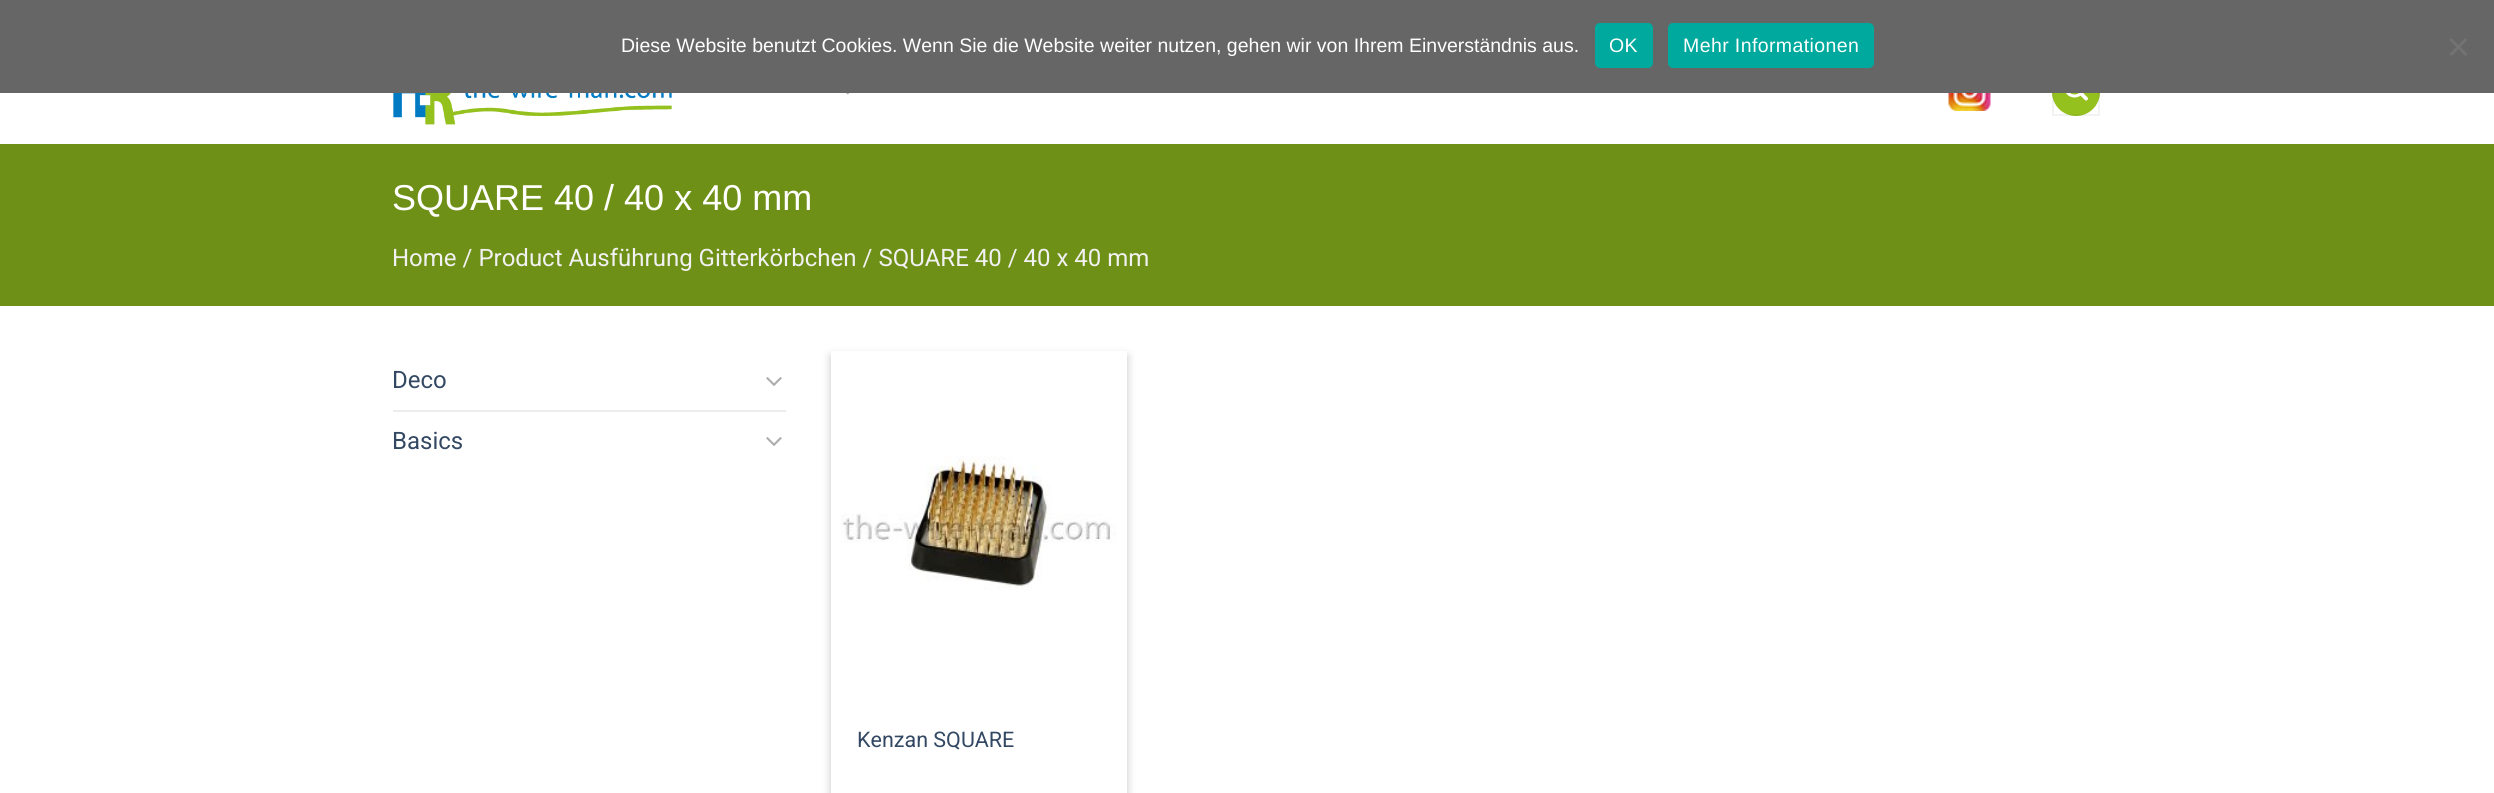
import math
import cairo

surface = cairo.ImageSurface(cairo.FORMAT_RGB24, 2494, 793)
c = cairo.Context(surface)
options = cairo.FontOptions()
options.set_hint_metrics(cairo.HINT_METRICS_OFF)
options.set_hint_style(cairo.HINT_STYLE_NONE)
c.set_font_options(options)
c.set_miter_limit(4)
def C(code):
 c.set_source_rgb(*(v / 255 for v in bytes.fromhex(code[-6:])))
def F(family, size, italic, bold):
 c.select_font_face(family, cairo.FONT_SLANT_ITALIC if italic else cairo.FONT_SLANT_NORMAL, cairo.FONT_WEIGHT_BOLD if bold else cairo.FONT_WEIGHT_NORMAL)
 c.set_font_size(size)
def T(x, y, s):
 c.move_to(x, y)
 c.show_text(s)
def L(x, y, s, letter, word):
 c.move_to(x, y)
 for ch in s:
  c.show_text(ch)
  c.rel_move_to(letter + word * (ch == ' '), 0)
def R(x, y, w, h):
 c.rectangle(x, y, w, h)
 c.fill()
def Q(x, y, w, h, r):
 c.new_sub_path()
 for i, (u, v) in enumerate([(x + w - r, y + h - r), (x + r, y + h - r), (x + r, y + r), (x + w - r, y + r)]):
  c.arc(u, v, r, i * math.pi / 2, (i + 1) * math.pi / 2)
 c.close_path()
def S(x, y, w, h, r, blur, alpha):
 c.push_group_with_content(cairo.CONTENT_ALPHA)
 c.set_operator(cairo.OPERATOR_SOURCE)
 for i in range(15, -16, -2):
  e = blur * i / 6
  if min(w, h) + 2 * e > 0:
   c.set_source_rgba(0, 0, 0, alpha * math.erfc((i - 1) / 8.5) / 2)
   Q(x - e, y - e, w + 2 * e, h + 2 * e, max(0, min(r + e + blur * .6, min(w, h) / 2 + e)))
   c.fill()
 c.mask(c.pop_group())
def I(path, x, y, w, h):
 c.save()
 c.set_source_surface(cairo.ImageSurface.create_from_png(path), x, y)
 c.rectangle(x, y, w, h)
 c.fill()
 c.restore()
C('ffffff')
c.paint()
C('95c11f')
Q(2052,65,48,51,24)
c.fill()
c.rectangle(2053,66,46,49)
c.set_source_rgba(0,0,0,0.05)
c.stroke()
C('666666')
R(0,0,2494,93)
F('Liberation Sans',19.5,0,0)
C('ffffff')
T(621,52,'Diese Website benutzt Cookies. Wenn Sie die Website weiter nutzen, gehen wir von Ihrem Einverständnis aus.')
C('00a99d')
Q(1595,23,58,45,5)
c.fill()
C('ffffff')
L(1609,52,'OK',.4,0)
C('00a99d')
Q(1668,23,206,45,5)
c.fill()
C('ffffff')
L(1683,52,'Mehr Informationen',.4,0)
C('737373')
c.new_path()
c.move_to(2465.5,38)
c.line_to(2467.5,40)
c.line_to(2451.5,56)
c.line_to(2449.5,54)
c.close_path()
c.fill()
c.new_path()
c.move_to(2449.5,40)
c.line_to(2451.5,38)
c.line_to(2467.5,54)
c.line_to(2465.5,56)
c.close_path()
c.fill()
I('1.png',393,93,279,32)
I('2.png',846,93,4,2)
I('3.png',1948,93,43,18)
I('4.png',2066,93,22,8)
C('6f9017')
R(0,144,2494,162)
F('Liberation Sans',36,0,0)
C('ffffff')
T(392,210,'SQUARE 40 / 40 x 40 mm')
F('Roboto',24,0,0)
C('f1f1f1')
T(392,266,'Home / Product Ausführung Gitterkörbchen / SQUARE 40 / 40 x 40 mm')
C('334862')
T(392,388,'Deco')
I('5.png',766,377,16,9)
C('ececec')
R(393,410,393,2)
C('334862')
T(392,449,'Basics')
I('5.png',766,437,16,9)
C('000000')
S(831,356,296,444,0,4.5,.23)
C('ffffff')
R(831,351,296,442)
I('6.png',841,456,275,134)
F('Roboto',21.5,0,0)
C('334862')
T(857,747,'Kenzan SQUARE')
surface.write_to_png('o.png')
